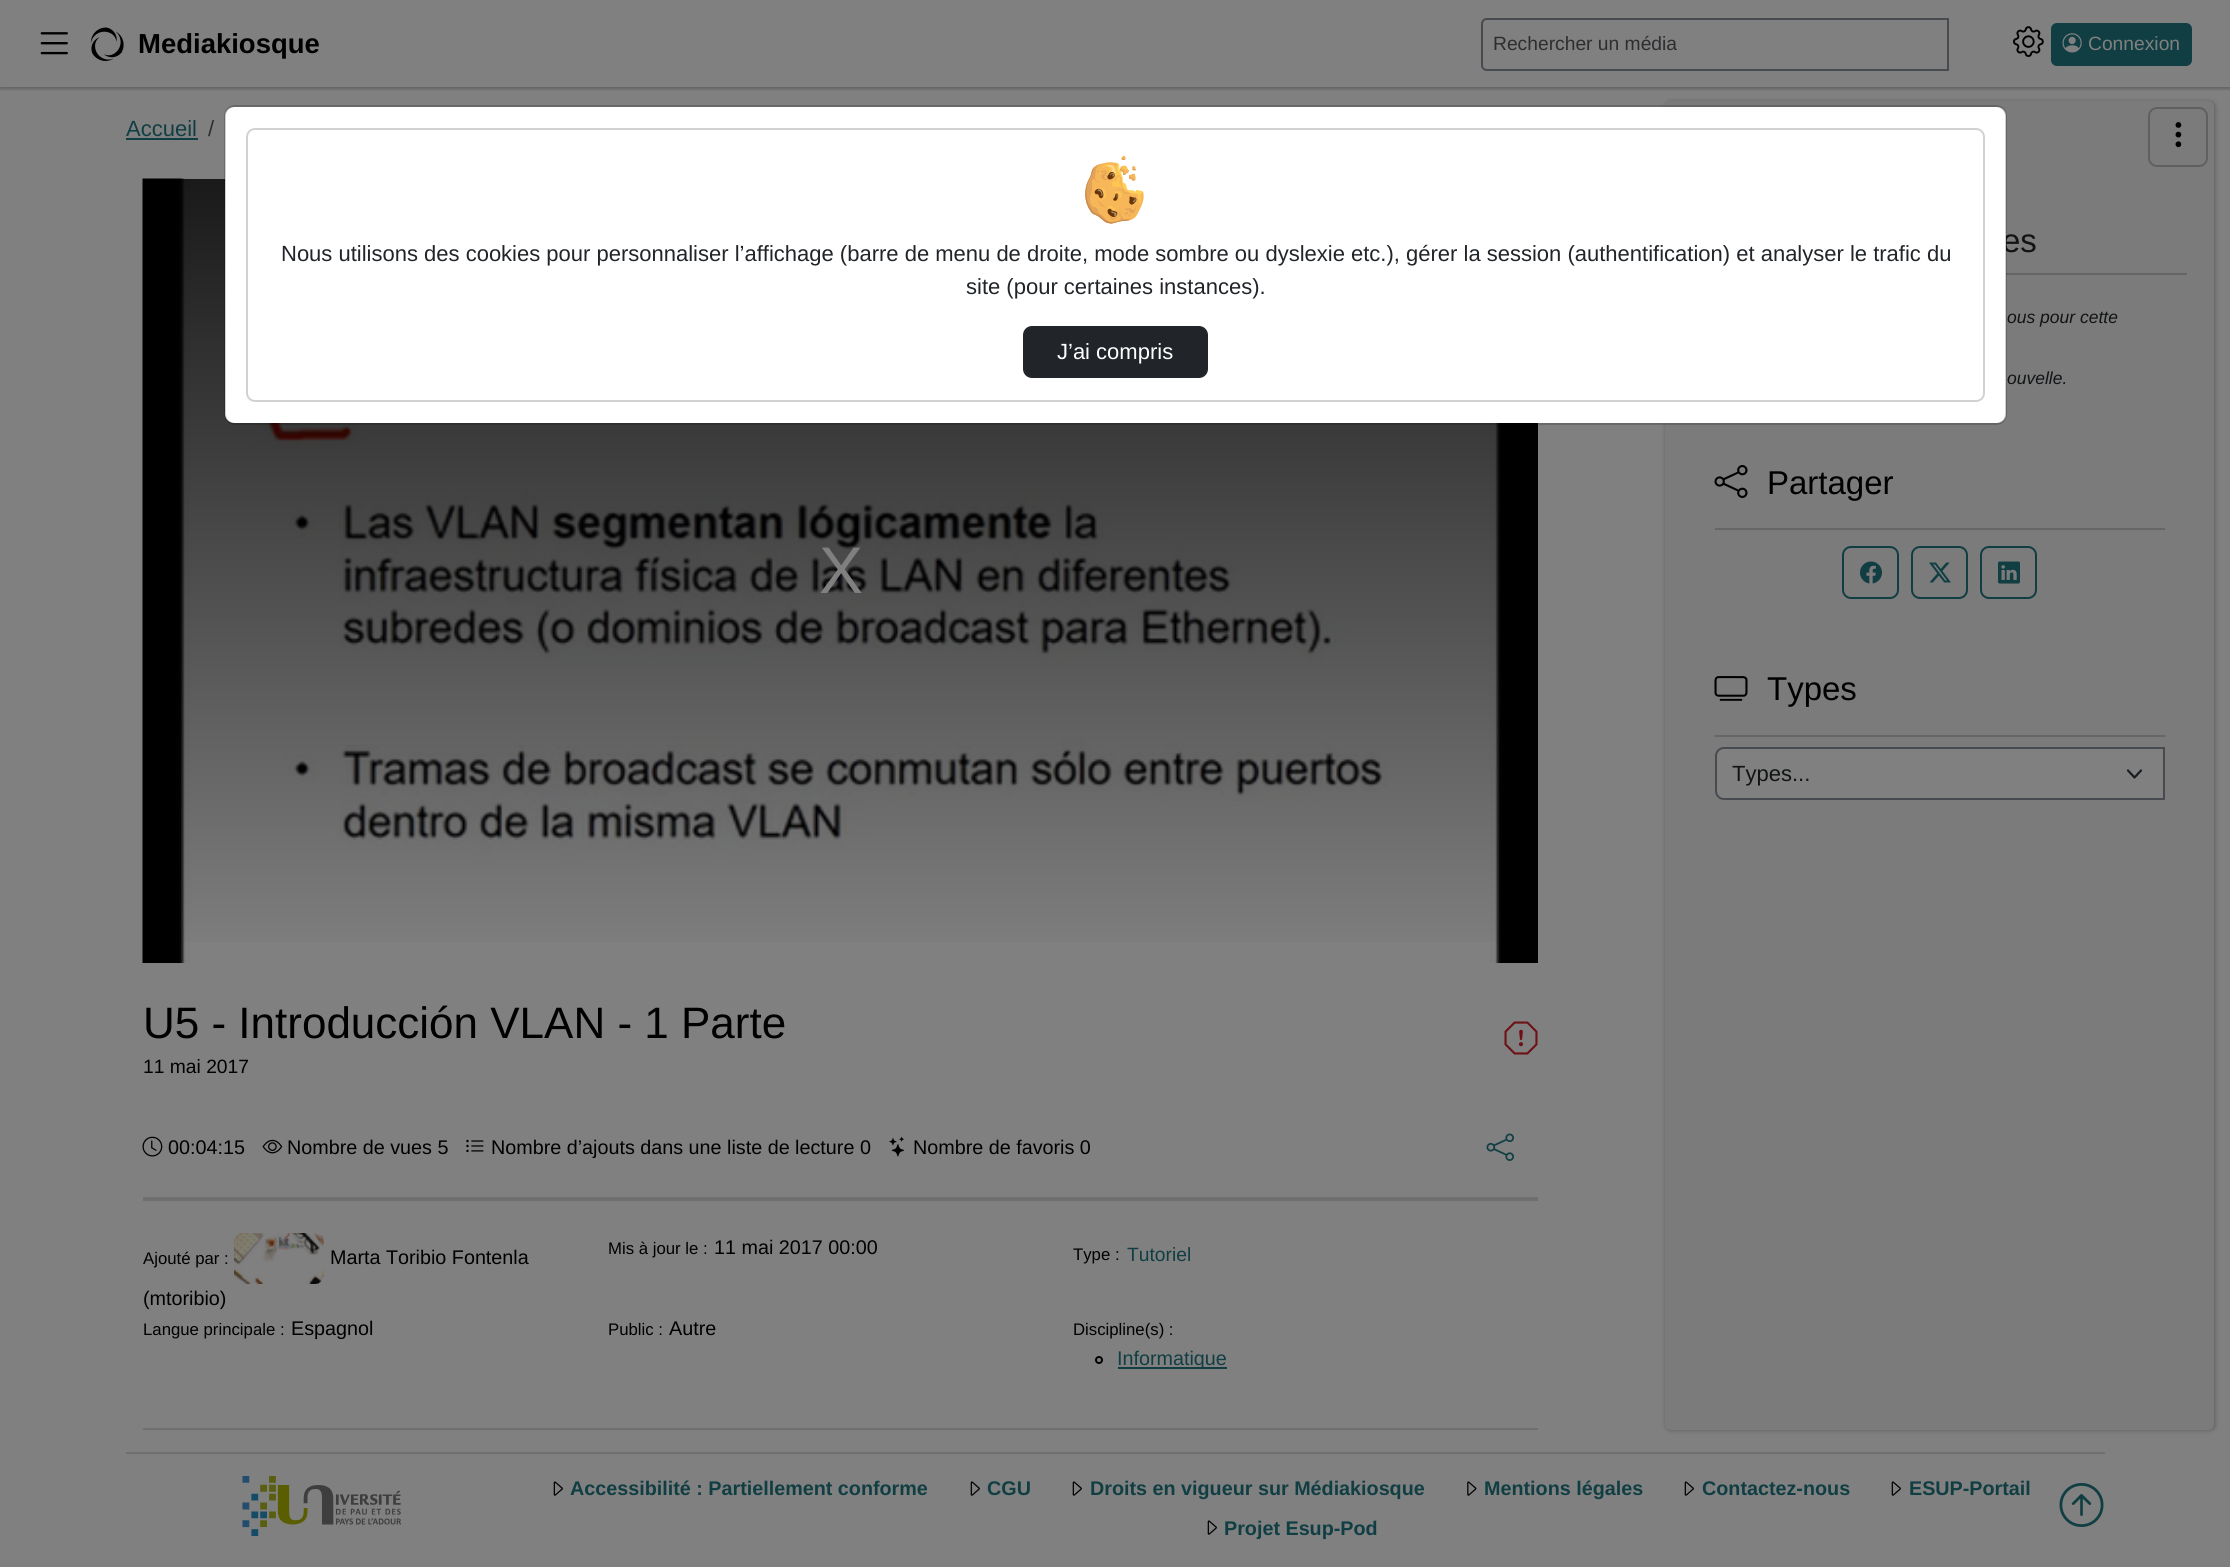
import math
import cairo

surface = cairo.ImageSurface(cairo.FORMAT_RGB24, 2230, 1567)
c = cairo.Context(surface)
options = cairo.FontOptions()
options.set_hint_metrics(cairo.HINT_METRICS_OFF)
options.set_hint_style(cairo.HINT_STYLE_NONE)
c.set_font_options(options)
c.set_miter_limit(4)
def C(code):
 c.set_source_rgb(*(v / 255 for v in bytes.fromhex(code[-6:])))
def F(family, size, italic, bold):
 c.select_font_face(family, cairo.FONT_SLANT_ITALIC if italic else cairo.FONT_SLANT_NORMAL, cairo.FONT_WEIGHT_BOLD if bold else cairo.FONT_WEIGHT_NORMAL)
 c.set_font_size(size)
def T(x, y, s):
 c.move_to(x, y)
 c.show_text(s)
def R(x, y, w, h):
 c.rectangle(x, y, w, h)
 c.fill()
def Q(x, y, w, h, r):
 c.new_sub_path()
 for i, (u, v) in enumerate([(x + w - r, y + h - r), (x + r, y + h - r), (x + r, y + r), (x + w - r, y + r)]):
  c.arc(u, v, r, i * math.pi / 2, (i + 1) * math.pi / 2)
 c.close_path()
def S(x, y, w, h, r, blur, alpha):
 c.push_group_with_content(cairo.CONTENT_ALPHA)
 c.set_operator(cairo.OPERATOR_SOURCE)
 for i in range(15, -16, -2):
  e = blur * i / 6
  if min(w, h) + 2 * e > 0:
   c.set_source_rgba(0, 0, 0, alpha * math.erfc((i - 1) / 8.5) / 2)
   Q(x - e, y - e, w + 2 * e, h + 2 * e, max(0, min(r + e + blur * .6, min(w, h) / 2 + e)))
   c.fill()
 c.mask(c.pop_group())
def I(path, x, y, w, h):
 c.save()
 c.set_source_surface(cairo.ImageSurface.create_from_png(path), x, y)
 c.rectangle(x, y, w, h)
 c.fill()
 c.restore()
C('808080')
c.paint()
c.save()
c.rectangle(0,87,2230,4)
c.clip()
C('000000')
S(0,2,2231,87,0,1.5,.24)
c.restore()
I('1.png',40,32,28,23)
I('2.png',90,27,34,34)
F('Liberation Sans',27.5,0,1)
C('000000')
T(138,53,'Mediakiosque')
c.new_path()
c.move_to(1487,19)
c.line_to(1948,19)
c.line_to(1948,70)
c.line_to(1487,70)
c.curve_to(1484,70,1482,68,1482,65)
c.line_to(1482,24)
c.curve_to(1482,21,1484,19,1487,19)
c.close_path()
C('474b4f')
c.stroke()
F('Liberation Sans',19.25,0,0)
C('2d2e30')
T(1493,50,'Rechercher un média')
I('3.png',2013,26,31,31)
C('103e43')
Q(2052,24,139,41,5)
c.fill_preserve()
c.stroke()
I('4.png',2062,33,20,20)
C('808080')
T(2088,50,'Connexion')
F('Liberation Sans',22,0,0)
C('103e43')
T(126,136,'Accueil')
R(126,138,72,2)
C('2d2e30')
T(208,136,'/')
C('000000')
R(1537,423,1,540)
I('5.png',142,178,1396,785)
gradient = cairo.LinearGradient(840,178,840,963)
gradient.add_color_stop_rgba(0,0,0,0,.8)
gradient.add_color_stop_rgba(1,0,0,0,0)
c.set_source(gradient)
R(180,179,1358,763)
F('Liberation Sans',66,0,0)
C('808080')
T(819,593,'X')
F('Liberation Sans',44,0,0)
C('000000')
T(143,1038,'U5 - Introducción VLAN - 1 Parte')
F('Liberation Sans',19.25,0,0)
T(143,1073,'11 mai 2017')
I('6.png',1504,1021,34,34)
C('6f6f6f')
R(143,1197,1395,4)
I('7.png',142,1136,21,21)
F('Liberation Sans',19.75,0,0)
C('000000')
T(168,1154,'00:04:15')
I('8.png',262,1139,21,15)
T(287,1154,'Nombre de vues 5')
I('9.png',466,1139,18,14)
T(491,1154,'Nombre d’ajouts dans une liste de lecture')
T(860,1154,'0')
I('10.png',889,1136,16,21)
T(913,1154,'Nombre de favoris 0')
I('11.png',1486,1133,28,28)
C('6f6f6f')
R(143,1428,1395,2)
F('Liberation Sans',16.75,0,0)
C('000000')
T(143,1264,'Ajouté par :')
I('12.png',234,1233,90,51)
F('Liberation Sans',19.75,0,0)
T(330,1264,'Marta Toribio Fontenla')
T(143,1305,'(mtoribio)')
F('Liberation Sans',16.75,0,0)
T(608,1254,'Mis à jour le :')
F('Liberation Sans',19.75,0,0)
T(714,1254,'11 mai 2017 00:00')
F('Liberation Sans',16.75,0,0)
T(1073,1260,'Type :')
F('Liberation Sans',19.25,0,0)
C('103e43')
T(1127,1261,'Tutoriel')
F('Liberation Sans',16.75,0,0)
C('000000')
T(143,1335,'Langue principale :')
F('Liberation Sans',19.75,0,0)
T(291,1335,'Espagnol')
F('Liberation Sans',16.75,0,0)
T(608,1335,'Public :')
F('Liberation Sans',19.75,0,0)
T(669,1335,'Autre')
F('Liberation Sans',16.75,0,0)
T(1073,1335,'Discipline(s) :')
c.new_path()
c.arc(1099,1360,3,0,2 * math.pi)
c.stroke()
C('103e43')
R(1118,1367,109,2)
F('Liberation Sans',19.75,0,0)
T(1117,1365,'Informatique')
C('000000')
S(1665,101,551,1330,6,2,.2)
C('7b7b7b')
Q(1665,101,549,1329,6)
c.fill()
C('656565')
R(2006,273,181,2)
F('Liberation Sans',33,0,0)
C('111315')
T(2002,252,'es')
F('Liberation Sans',17.5,1,0)
T(2007,323,'ous pour cette')
T(2007,384,'ouvelle.')
I('13.png',1714,465,34,33)
F('Liberation Sans',33,0,0)
C('000000')
T(1767,494,'Partager')
C('666666')
R(1715,528,450,2)
Q(1843,547,55,51,8)
C('103e43')
c.stroke()
I('14.png',1860,561,22,23)
Q(1912,547,55,51,8)
c.stroke()
I('15.png',1929,562,22,21)
Q(1981,547,55,51,8)
c.stroke()
I('16.png',1998,561,22,23)
I('17.png',1714,676,34,25)
C('000000')
T(1767,700,'Types')
C('666666')
R(1715,735,450,2)
C('808080')
c.new_path()
c.move_to(1724,747)
c.line_to(2165,747)
c.line_to(2165,800)
c.line_to(1724,800)
c.curve_to(1719,800,1715,796,1715,791)
c.line_to(1715,756)
c.curve_to(1715,751,1719,747,1724,747)
c.close_path()
c.fill()
c.new_path()
c.move_to(2128,770.5)
c.line_to(2134.5,777.5)
c.line_to(2141,770.5)
C('1a1d20')
c.set_line_width(2.2)
c.set_line_cap(cairo.LINE_CAP_ROUND)
c.set_line_join(cairo.LINE_JOIN_ROUND)
c.stroke()
c.new_path()
c.move_to(1724,748)
c.line_to(2164,748)
c.line_to(2164,799)
c.line_to(1724,799)
c.curve_to(1719.5,799,1716,795.5,1716,791)
c.line_to(1716,756)
c.curve_to(1716,751.5,1719.5,748,1724,748)
c.close_path()
C('474b4f')
c.set_line_width(2)
c.set_line_cap(cairo.LINE_CAP_BUTT)
c.set_line_join(cairo.LINE_JOIN_MITER)
c.stroke()
F('Liberation Sans',22,0,0)
C('111315')
T(1732,781,'Types...')
Q(2149,108,58,58,8)
C('606060')
c.stroke()
I('18.png',2175,122,7,26)
C('ffffff')
Q(225,107,1781,316,9)
c.fill()
Q(225,106,1781,318,10)
c.set_source_rgba(0,0,0,0.18)
c.stroke()
Q(247,129,1737,272,8)
C('d2d2d2')
c.stroke()
I('19.png',1085,155,59,69)
C('212529')
T(281,261,'Nous utilisons des cookies pour personnaliser l’affichage (barre de menu de droite, mode sombre ou dyslexie etc.), gérer la session (authentification) et analyser le trafic du')
T(966,294,'site (pour certaines instances).')
Q(1024,327,183,50,8)
c.fill_preserve()
c.stroke()
C('ffffff')
T(1057,359,'J’ai compris')
C('6f6f6f')
R(126,1452,1979,2)
I('20.png',242,1476,159,60)
I('21.png',553,1481,10,15)
F('Liberation Sans',19.75,0,1)
C('103e43')
T(570,1495,'Accessibilité : Partiellement conforme')
I('21.png',970,1481,10,15)
T(987,1495,'CGU')
I('21.png',1072,1481,10,15)
T(1090,1495,'Droits en vigueur sur Médiakiosque')
I('22.png',1467,1481,10,15)
T(1484,1495,'Mentions légales')
I('21.png',1684,1481,10,15)
T(1702,1495,'Contactez-nous')
I('21.png',1891,1481,10,15)
T(1909,1495,'ESUP-Portail')
I('21.png',1207,1520,10,15)
T(1224,1535,'Projet Esup-Pod')
I('23.png',2059,1483,45,44)
surface.write_to_png('o.png')
